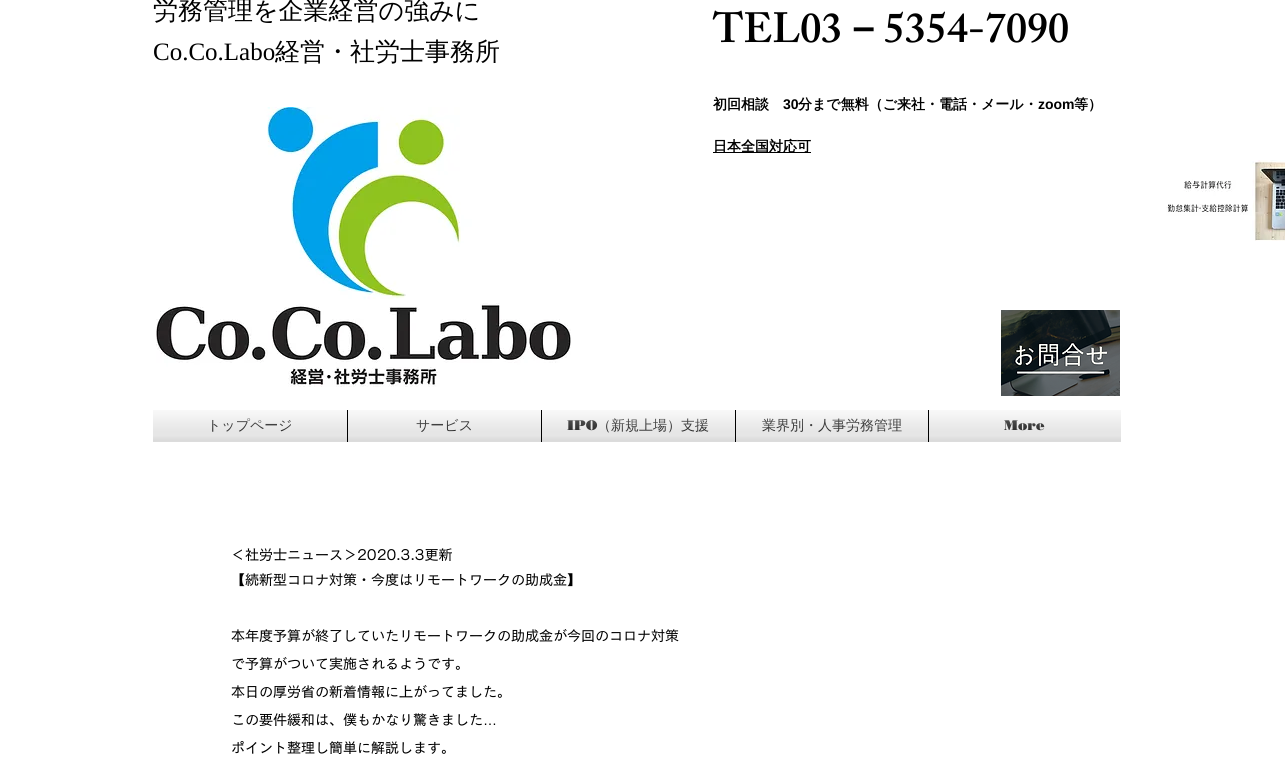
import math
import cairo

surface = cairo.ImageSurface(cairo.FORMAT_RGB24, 1285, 767)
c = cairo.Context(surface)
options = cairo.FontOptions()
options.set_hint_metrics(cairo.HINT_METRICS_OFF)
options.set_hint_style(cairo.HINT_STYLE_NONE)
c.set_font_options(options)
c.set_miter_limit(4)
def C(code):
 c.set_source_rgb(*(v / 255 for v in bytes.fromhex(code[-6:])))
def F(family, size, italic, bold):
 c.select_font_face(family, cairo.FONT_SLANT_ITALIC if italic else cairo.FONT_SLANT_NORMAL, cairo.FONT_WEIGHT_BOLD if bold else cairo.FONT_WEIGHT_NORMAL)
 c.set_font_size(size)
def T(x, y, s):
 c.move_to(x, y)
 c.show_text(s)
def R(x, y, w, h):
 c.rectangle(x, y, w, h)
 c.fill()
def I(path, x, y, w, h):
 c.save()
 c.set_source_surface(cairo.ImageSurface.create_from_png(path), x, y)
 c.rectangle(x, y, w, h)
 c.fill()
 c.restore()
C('ffffff')
c.paint()
F('WenQuanYi Zen Hei Medium',25,0,0)
C('000000')
T(153,19,'労務管理を企業経営の強みに')
F('Liberation Serif',25,0,0)
T(153,60,'Co.Co.Labo')
F('WenQuanYi Zen Hei Medium',25,0,0)
T(275,60,'経営・社労士事務所')
F('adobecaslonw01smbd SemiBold',42,0,0)
T(713,42,'TEL03')
F('WenQuanYi Zen Hei',42,0,1)
T(842,42,'－')
F('adobecaslonw01smbd SemiBold',42,0,0)
T(884,42,'5354-7090')
I('1.png',156,107,415,280)
F('WenQuanYi Zen Hei',14,0,1)
T(713,109,'初回相談')
F('Liberation Sans',14,0,1)
T(783,109,'30')
F('WenQuanYi Zen Hei',14,0,1)
T(798,109,'分まで無料（ご来社・電話・メール・')
F('Liberation Sans',14,0,1)
T(1038,109,'zoom')
F('WenQuanYi Zen Hei',14,0,1)
T(1074,109,'等）')
R(713,152,98,1)
T(713,151,'日本全国対応可')
I('2.png',1166,160,119,81)
I('3.png',1001,310,119,86)
F('WenQuanYi Zen Hei Medium',14,0,0)
T(207,430,'トップページ')
I('4.png',211,418,80,14)
I('5.png',153,410,194,32)
R(347,410,1,32)
T(416,430,'サービス')
I('6.png',416,418,55,14)
I('7.png',348,410,193,32)
R(541,410,1,32)
F('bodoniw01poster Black',14,0,0)
T(567,430,'IPO')
F('WenQuanYi Zen Hei Medium',14,0,0)
T(597,430,'（新規上場）支援')
I('8.png',567,418,142,15)
I('9.png',542,410,193,32)
R(735,410,1,32)
T(762,430,'業界別・人事労務管理')
I('10.png',761,418,140,14)
I('11.png',736,410,192,32)
R(928,410,1,32)
F('bodoniw01poster Black',14,0,0)
T(1004,430,'More')
I('12.png',1004,420,41,11)
I('13.png',929,410,192,32)
F('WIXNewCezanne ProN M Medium',14,0,0)
T(231,560,'＜社労士ニュース＞2020.3.3更新')
T(231,585,'【続新型コロナ対策・今度はリモートワークの助成金】')
T(231,641,'本年度予算が終了していたリモートワークの助成金が今回のコロナ対策')
T(231,669,'で予算がついて実施されるようです。')
T(231,697,'本日の厚労省の新着情報に上がってました。')
T(231,725,'この要件緩和は、僕もかなり驚きました')
F('Liberation Sans',14,0,0)
T(483,725,'…')
F('WIXNewCezanne ProN M Medium',14,0,0)
T(231,753,'ポイント整理し簡単に解説します。')
surface.write_to_png('o.png')
